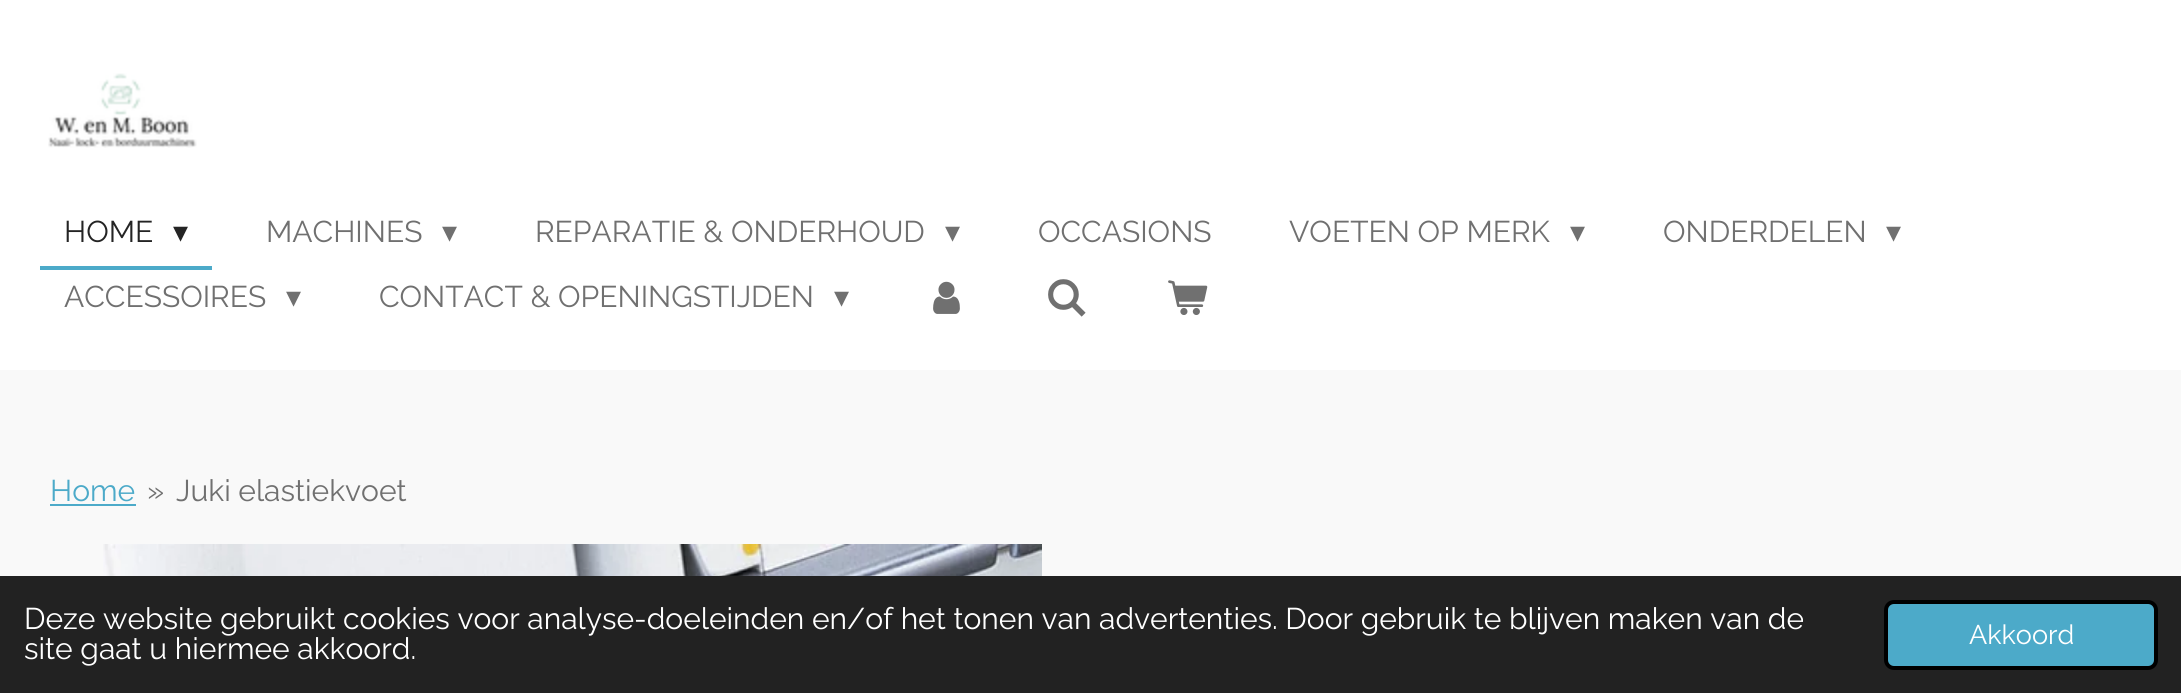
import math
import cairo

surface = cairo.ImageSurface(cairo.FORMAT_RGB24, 2181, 693)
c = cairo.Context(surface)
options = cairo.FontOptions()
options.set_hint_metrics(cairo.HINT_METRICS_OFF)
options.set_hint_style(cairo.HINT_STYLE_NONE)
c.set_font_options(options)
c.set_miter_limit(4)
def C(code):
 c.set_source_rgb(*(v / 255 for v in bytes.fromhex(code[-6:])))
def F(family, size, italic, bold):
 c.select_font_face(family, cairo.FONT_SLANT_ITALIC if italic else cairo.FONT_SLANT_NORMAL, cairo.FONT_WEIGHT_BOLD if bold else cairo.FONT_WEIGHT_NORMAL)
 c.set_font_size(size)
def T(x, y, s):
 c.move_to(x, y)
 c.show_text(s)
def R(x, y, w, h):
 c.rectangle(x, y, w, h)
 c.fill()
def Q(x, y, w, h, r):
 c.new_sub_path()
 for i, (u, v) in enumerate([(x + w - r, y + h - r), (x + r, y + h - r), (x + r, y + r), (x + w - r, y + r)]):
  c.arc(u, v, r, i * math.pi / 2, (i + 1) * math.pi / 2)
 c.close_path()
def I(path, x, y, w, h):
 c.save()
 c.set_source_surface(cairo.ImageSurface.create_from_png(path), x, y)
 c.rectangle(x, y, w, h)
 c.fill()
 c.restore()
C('ffffff')
c.paint()
I('1.png',48,73,149,75)
C('4caac9')
R(40,266,172,4)
F('Raleway',30,0,0)
C('242424')
T(64,242,'HOME')
F('DejaVu Sans',30,0,0)
T(173,242,'▾')
F('Raleway',30,0,0)
C('707070')
T(266,242,'MACHINES')
F('DejaVu Sans',30,0,0)
T(442,242,'▾')
F('Raleway',30,0,0)
T(535,242,'REPARATIE & ONDERHOUD')
F('DejaVu Sans',30,0,0)
T(945,242,'▾')
F('Raleway',30,0,0)
T(1038,242,'OCCASIONS')
T(1289,242,'VOETEN OP MERK')
F('DejaVu Sans',30,0,0)
T(1570,242,'▾')
F('Raleway',30,0,0)
T(1663,242,'ONDERDELEN')
F('DejaVu Sans',30,0,0)
T(1886,242,'▾')
F('Raleway',30,0,0)
T(64,307,'ACCESSOIRES')
F('DejaVu Sans',30,0,0)
T(286,307,'▾')
F('Raleway',30,0,0)
T(379,307,'CONTACT & OPENINGSTIJDEN')
F('DejaVu Sans',30,0,0)
T(834,307,'▾')
I('2.png',933,281,27,33)
I('3.png',1048,279,38,38)
I('4.png',1168,280,40,35)
C('f9f9f9')
R(0,370,2181,206)
F('Raleway',30,0,0)
C('4caac9')
T(50,501,'Home')
R(50,504,86,2)
C('707070')
T(147,501,'»')
T(176,501,'Juki elastiekvoet')
I('5.png',103,544,939,32)
C('222222')
R(0,576,2181,117)
C('ffffff')
T(24,629,'Deze website gebruikt cookies voor analyse-doeleinden en/of het tonen van advertenties. Door gebruik te blijven maken van de')
T(24,659,'site gaat u hiermee akkoord.')
C('4caac9')
Q(1886,602,270,66,8)
c.fill_preserve()
C('000000')
c.set_line_width(4)
c.stroke()
F('Raleway',27,0,0)
C('ffffff')
T(1969,644,'Akkoord')
surface.write_to_png('o.png')
